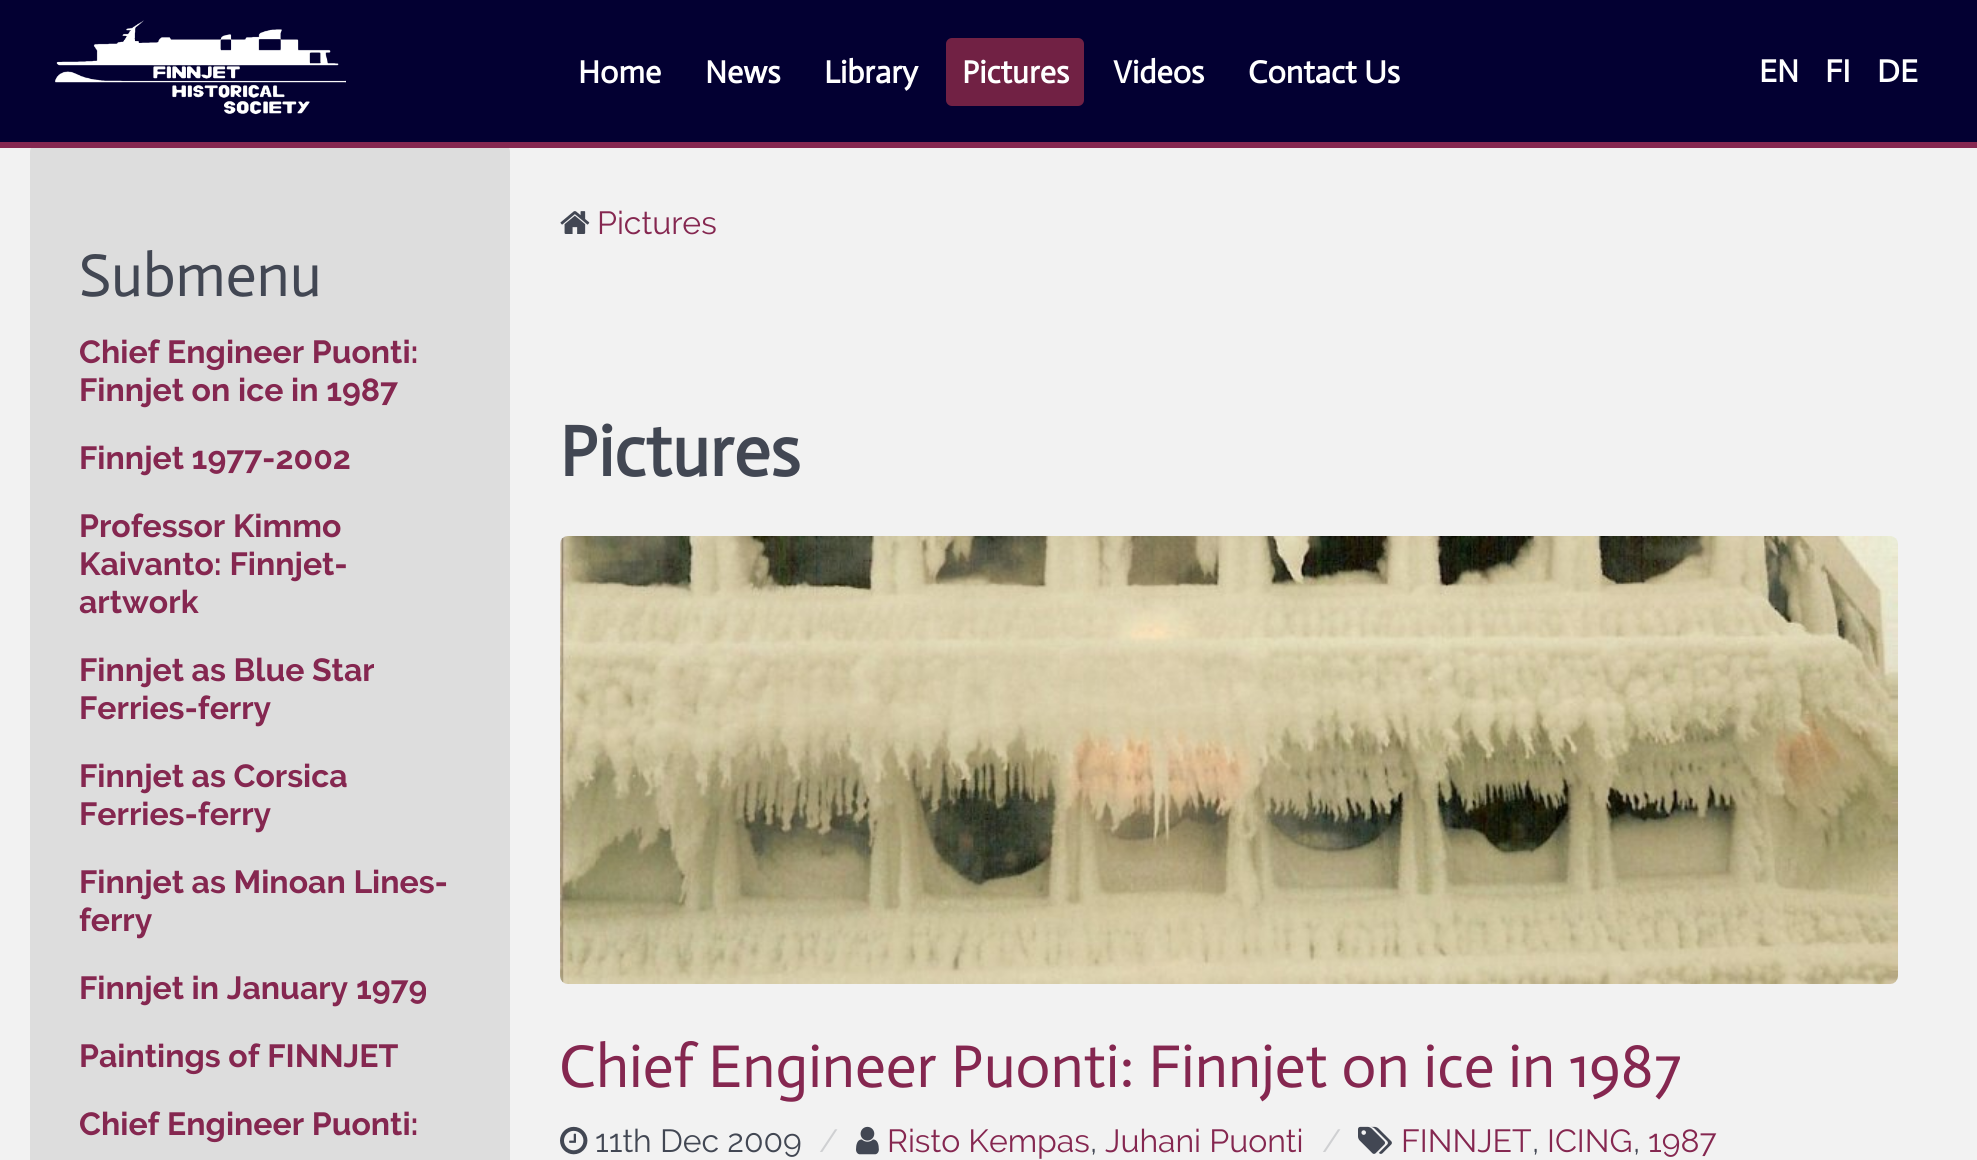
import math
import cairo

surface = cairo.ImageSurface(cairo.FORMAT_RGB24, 1977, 1160)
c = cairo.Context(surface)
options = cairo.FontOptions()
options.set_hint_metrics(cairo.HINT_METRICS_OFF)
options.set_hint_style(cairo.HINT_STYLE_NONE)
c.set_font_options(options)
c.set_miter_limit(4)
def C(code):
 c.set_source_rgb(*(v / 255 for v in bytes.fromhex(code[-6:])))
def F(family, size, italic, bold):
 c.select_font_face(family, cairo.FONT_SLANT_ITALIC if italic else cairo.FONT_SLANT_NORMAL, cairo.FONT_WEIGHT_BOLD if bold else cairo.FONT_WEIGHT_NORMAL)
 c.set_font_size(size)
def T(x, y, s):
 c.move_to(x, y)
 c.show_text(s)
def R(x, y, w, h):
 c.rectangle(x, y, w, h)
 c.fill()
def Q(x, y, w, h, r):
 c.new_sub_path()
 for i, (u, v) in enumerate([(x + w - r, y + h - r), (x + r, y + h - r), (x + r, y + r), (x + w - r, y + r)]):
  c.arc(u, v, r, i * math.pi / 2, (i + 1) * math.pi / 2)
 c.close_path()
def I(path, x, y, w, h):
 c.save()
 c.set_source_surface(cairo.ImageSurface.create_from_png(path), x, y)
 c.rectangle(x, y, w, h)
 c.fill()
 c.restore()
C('f2f2f2')
c.paint()
C('030032')
R(0,0,1977,142)
C('dddddd')
Q(30,142,480,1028,10)
c.fill()
C('852750')
R(0,142,1977,6)
I('1.png',55,20,291,95)
F('Actor',32,0,1)
C('ffffff')
T(578,83,'Home')
T(705,83,'News')
T(824,83,'Library')
C('712144')
Q(946,38,138,68,6)
c.fill()
C('ffffff')
T(962,83,'Pictures')
T(1113,83,'Videos')
T(1248,83,'Contact Us')
T(1759,82,'EN')
T(1825,82,'FI')
T(1877,82,'DE')
F('Actor',60.75,0,0)
C('424753')
T(79,296,'Submenu')
F('Raleway',32,0,1)
C('852750')
T(79,363,'Chief Engineer Puonti:')
T(79,401,'Finnjet on ice in 1987')
T(79,469,'Finnjet 1977-2002')
T(79,537,'Professor Kimmo')
T(79,575,'Kaivanto: Finnjet-')
T(79,613,'artwork')
T(79,681,'Finnjet as Blue Star')
T(79,719,'Ferries-ferry')
T(79,787,'Finnjet as Corsica')
T(79,825,'Ferries-ferry')
T(79,893,'Finnjet as Minoan Lines-')
T(79,931,'ferry')
T(79,999,'Finnjet in January 1979')
T(79,1067,'Paintings of FINNJET')
T(79,1135,'Chief Engineer Puonti:')
I('2.png',560,211,30,23)
F('Raleway',32,0,0)
T(597,234,'Pictures')
F('Actor',72,0,1)
C('424753')
T(559,476,'Pictures')
I('3.png',560,536,1338,448)
F('Actor',60.75,0,0)
C('852750')
T(559,1087,'Chief Engineer Puonti: Finnjet on ice in 1987')
I('4.png',560,1126,28,29)
F('Raleway',32,0,0)
C('424753')
T(595,1152,'11th Dec 2009')
C('cfd0d2')
T(819,1152,'/')
I('5.png',856,1126,23,29)
C('852750')
T(887,1152,'Risto Kempas')
C('424753')
T(1090,1152,',')
C('852750')
T(1105,1152,'Juhani Puonti')
C('cfd0d2')
T(1322,1152,'/')
I('6.png',1358,1126,34,28)
C('852750')
T(1401,1152,'FINNJET')
C('424753')
T(1532,1152,',')
C('852750')
T(1547,1152,'ICING')
C('424753')
T(1633,1152,',')
C('852750')
T(1648,1152,'1987')
surface.write_to_png('o.png')
